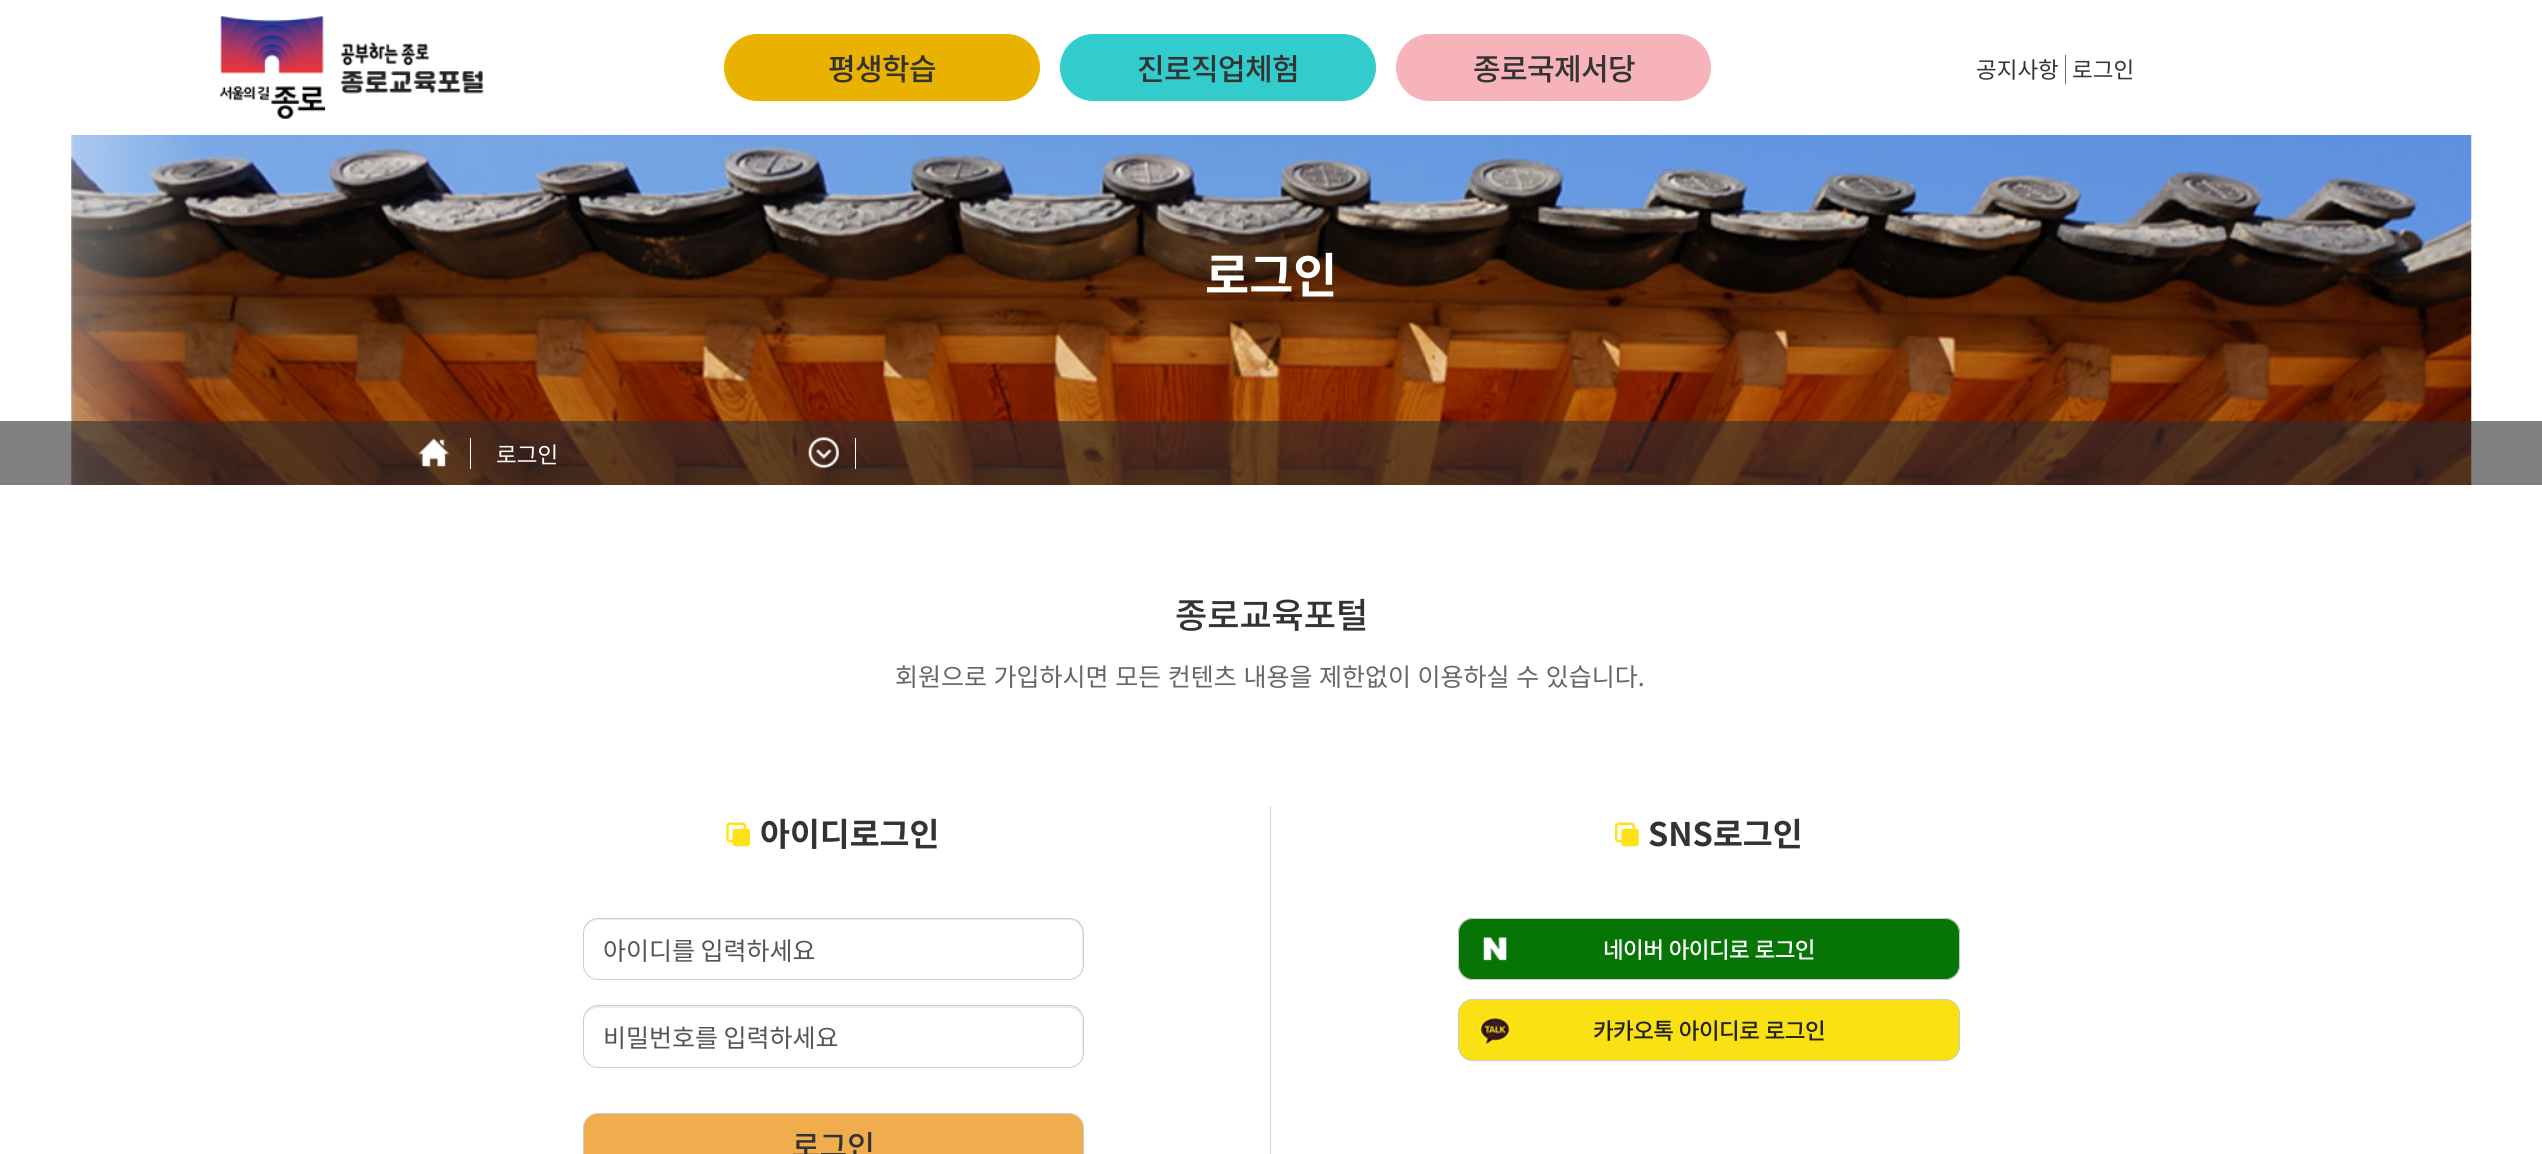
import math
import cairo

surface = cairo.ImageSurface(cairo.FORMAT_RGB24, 2542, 1154)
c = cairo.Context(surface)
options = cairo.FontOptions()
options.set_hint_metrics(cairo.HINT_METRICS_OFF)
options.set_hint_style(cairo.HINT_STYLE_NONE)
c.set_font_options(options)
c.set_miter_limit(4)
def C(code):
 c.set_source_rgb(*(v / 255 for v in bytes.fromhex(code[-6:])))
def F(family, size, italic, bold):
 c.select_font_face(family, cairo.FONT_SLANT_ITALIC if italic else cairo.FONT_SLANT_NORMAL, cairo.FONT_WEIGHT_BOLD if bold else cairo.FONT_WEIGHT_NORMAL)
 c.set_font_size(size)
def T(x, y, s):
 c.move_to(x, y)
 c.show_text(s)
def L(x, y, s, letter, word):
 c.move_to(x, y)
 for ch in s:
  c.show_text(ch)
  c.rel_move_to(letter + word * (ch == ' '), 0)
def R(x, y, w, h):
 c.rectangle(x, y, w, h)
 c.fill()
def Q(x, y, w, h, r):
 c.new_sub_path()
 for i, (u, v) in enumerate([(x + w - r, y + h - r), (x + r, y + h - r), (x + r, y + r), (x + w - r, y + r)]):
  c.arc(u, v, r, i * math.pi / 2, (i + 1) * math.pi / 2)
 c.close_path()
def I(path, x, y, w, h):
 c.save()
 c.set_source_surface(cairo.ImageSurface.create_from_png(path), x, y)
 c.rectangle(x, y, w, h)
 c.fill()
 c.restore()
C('ffffff')
c.paint()
I('1.png',220,16,264,103)
C('eab200')
Q(724.5,34.5,315,66,33)
c.fill_preserve()
c.set_line_width(1)
c.stroke()
F('Noto Sans KR Medium',30,0,0)
C('333333')
L(828,80,'평생학습',-.6,0)
C('33cccc')
Q(1060.5,34.5,315,66,33)
c.fill_preserve()
c.stroke()
C('333333')
L(1137,80,'진로직업체험',-.6,0)
C('f6b4ba')
Q(1396.5,34.5,314,66,33)
c.fill_preserve()
c.stroke()
C('333333')
L(1473,80,'종로국제서당',-.6,0)
F('Noto Sans KR',22.5,0,0)
T(1976,78,'공지사항')
C('666666')
R(2065,55,1,29)
C('333333')
T(2072,78,'로그인')
I('2.png',71,135,2401,350)
F('Noto Sans KR',48,0,1)
C('ffffff')
T(1205,293,'로그인')
c.set_source_rgba(0.176,0.176,0.176,0.6)
R(0,421,2542,64)
I('3.png',418,438,31,29)
C('ffffff')
R(470,438,1,31)
I('4.png',808,437,31,31)
F('Noto Sans KR',22.5,0,0)
T(496,463,'로그인')
R(855,438,1,31)
F('Noto Sans KR Medium',35,0,0)
C('333333')
T(1175,628,'종로교육포털')
F('Noto Sans KR',25,0,0)
C('666666')
L(895,686,'회원으로 가입하시면 모든 컨텐츠 내용을 제한없이 이용하실 수 있습니다.',0,1)
C('d7d7d7')
R(1270,806,1,348)
I('5.png',726,822,24,25)
F('Noto Sans KR',32.5,0,1)
C('333333')
T(760,846,'아이디로그인')
C('ececec')
c.new_path()
c.move_to(598,920)
c.line_to(1069,920)
c.curve_to(1076,920,1082,926,1082,934)
c.line_to(1082,966)
c.curve_to(1082,969,1081,972,1080,974)
c.curve_to(1082,972,1083,968,1083,965)
c.line_to(1083,933)
c.curve_to(1083,925,1077,919,1069,919)
c.line_to(598,919)
c.curve_to(590,919,584,925,584,933)
c.line_to(584,934)
c.curve_to(584,926,590,920,598,920)
c.close_path()
c.fill()
Q(583.5,918.5,500,61,14.5)
C('cccccc')
c.stroke()
F('Noto Sans KR',25,0,0)
C('555555')
T(603,960,'아이디를 입력하세요')
C('ececec')
c.new_path()
c.move_to(598,1008)
c.line_to(1069,1008)
c.curve_to(1076,1008,1082,1014,1082,1021)
c.line_to(1082,1054)
c.curve_to(1082,1056,1082,1058,1081,1060)
c.curve_to(1082,1057,1083,1055,1083,1052)
c.line_to(1083,1020)
c.curve_to(1083,1012,1077,1006,1069,1006)
c.line_to(598,1006)
c.curve_to(590,1006,584,1012,584,1020)
c.line_to(584,1021)
c.curve_to(584,1014,590,1008,598,1008)
c.close_path()
c.fill()
Q(583.5,1005.5,500,62,14.5)
C('cccccc')
c.stroke()
C('555555')
T(603,1047,'비밀번호를 입력하세요')
C('f0ad4e')
Q(583.5,1113.5,500,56,14.5)
c.fill_preserve()
C('cccccc')
c.stroke()
F('Noto Sans KR Medium',30,0,0)
C('333333')
T(792,1157,'로그인')
I('6.png',1615,822,24,25)
F('Noto Sans KR',32.5,0,1)
T(1648,846,'SNS로그인')
C('067505')
Q(1458,918,502,62,15)
c.fill()
I('7.png',1483,937,24,24)
Q(1458.5,918.5,501,61,14.5)
C('cccccc')
c.stroke()
F('Noto Sans KR Medium',22.5,0,0)
C('ffffff')
L(1603,958,'네이버 아이디로 로그인',-.6,1)
C('fae113')
Q(1458,999,502,62,15)
c.fill()
I('8.png',1479,1016,32,29)
Q(1458.5,999.5,501,61,14.5)
C('cccccc')
c.stroke()
C('222222')
L(1593,1039,'카카오톡 아이디로 로그인',-.6,1)
surface.write_to_png('o.png')
